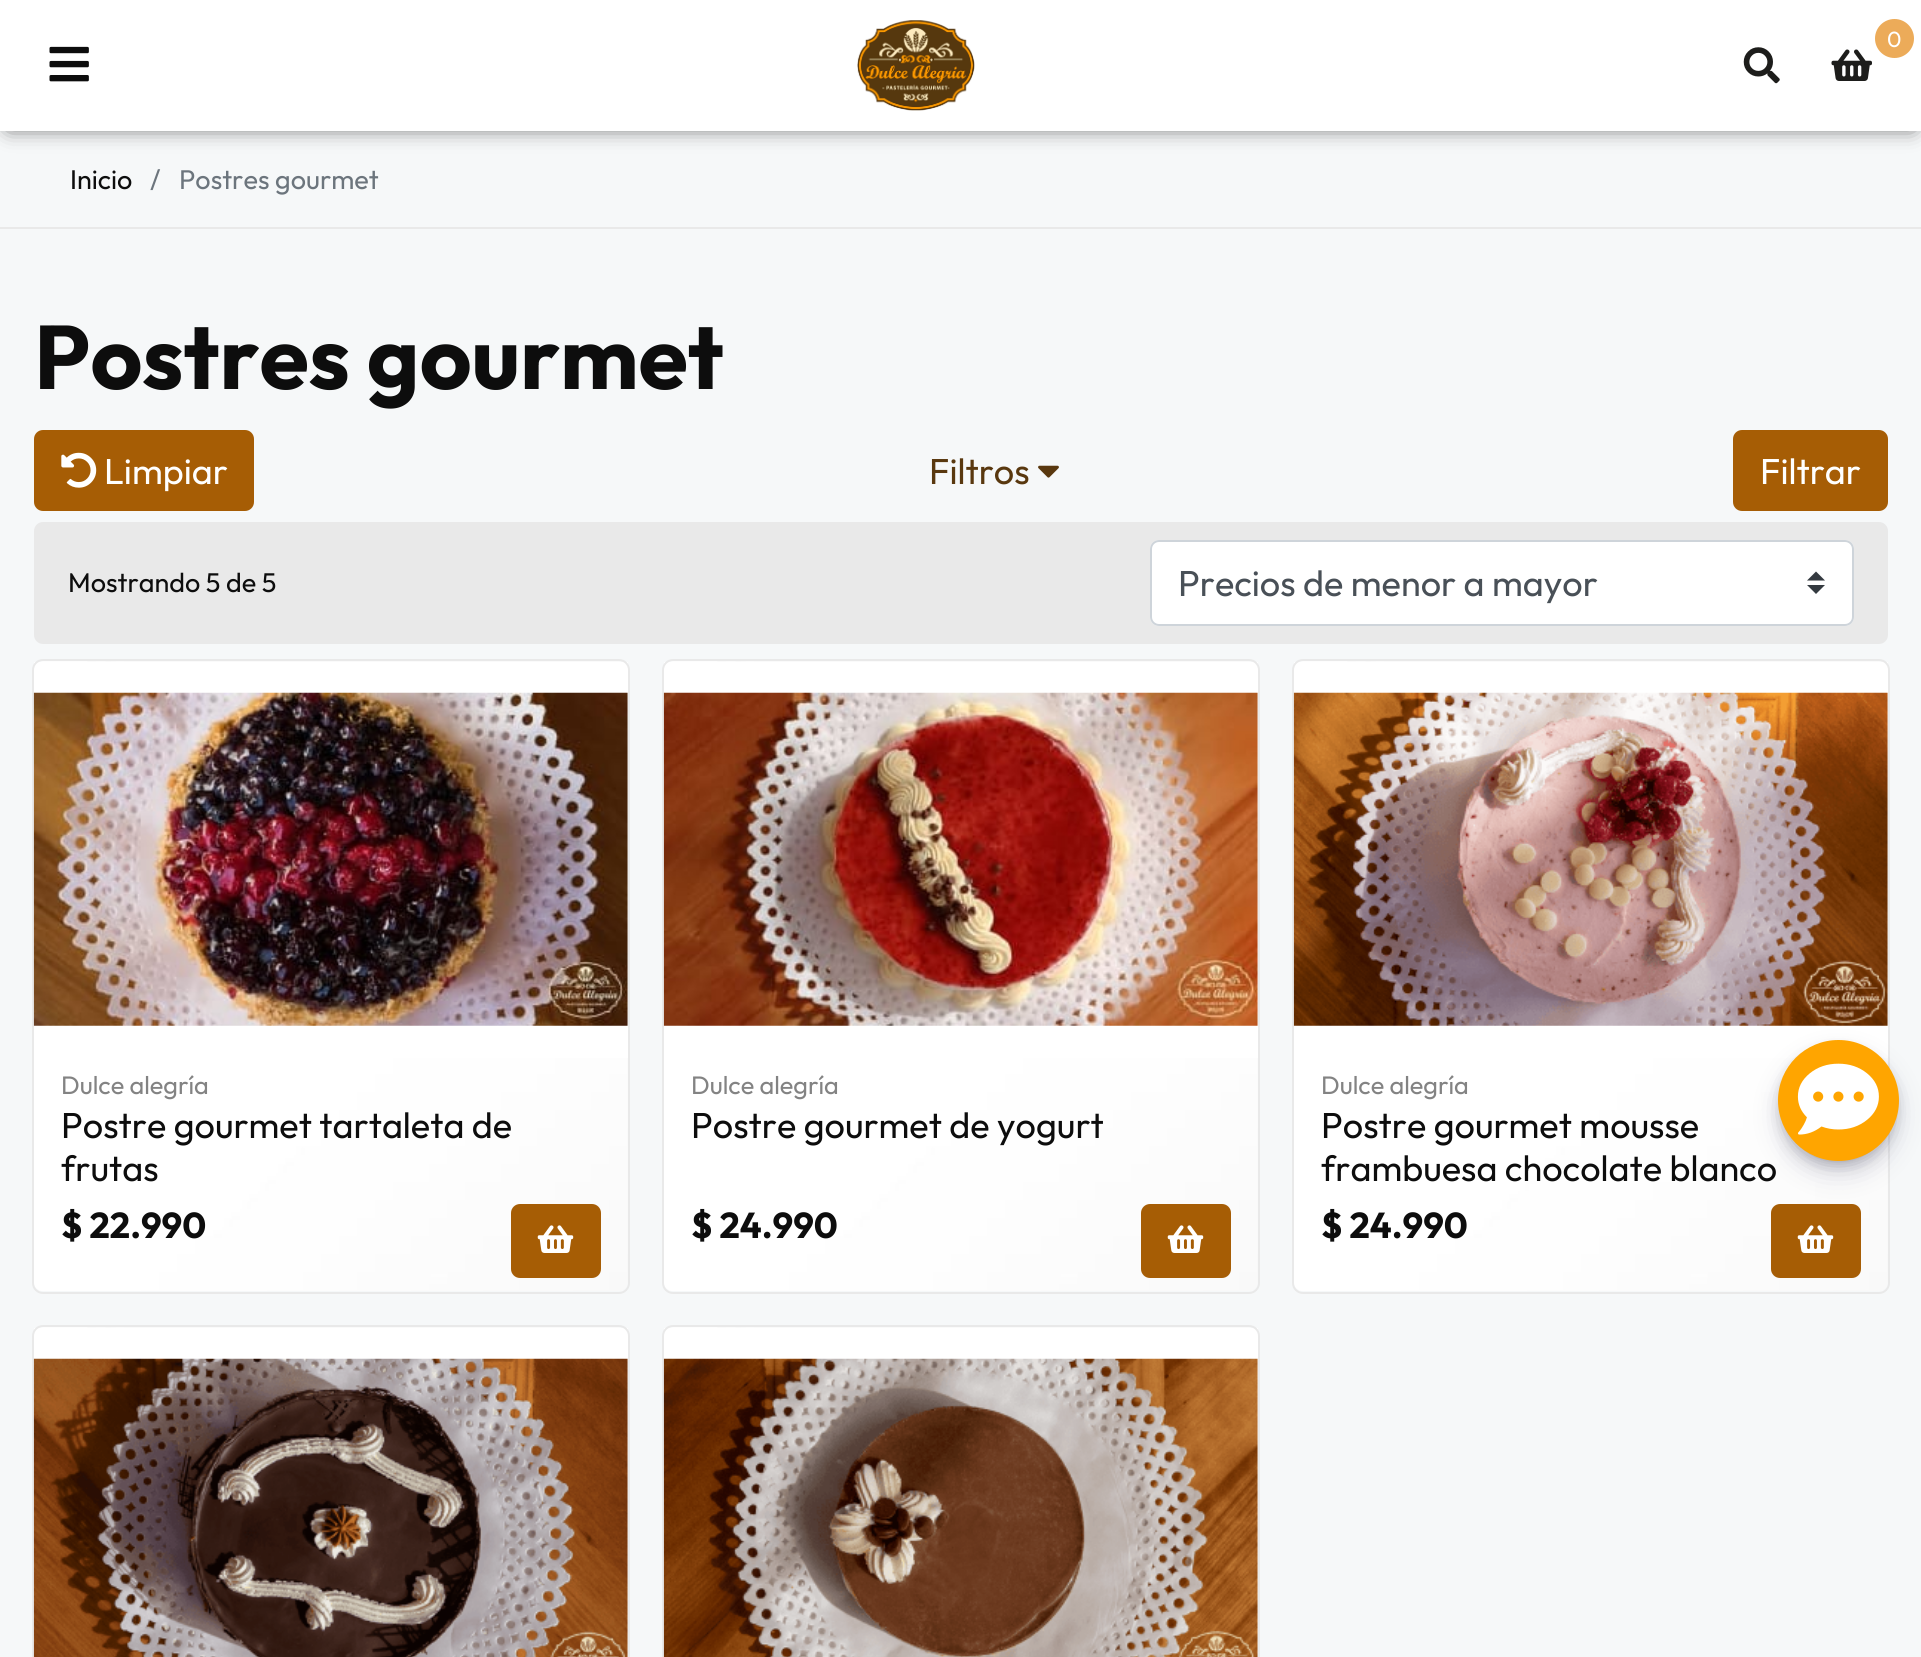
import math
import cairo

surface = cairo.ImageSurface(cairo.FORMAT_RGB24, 1921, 1657)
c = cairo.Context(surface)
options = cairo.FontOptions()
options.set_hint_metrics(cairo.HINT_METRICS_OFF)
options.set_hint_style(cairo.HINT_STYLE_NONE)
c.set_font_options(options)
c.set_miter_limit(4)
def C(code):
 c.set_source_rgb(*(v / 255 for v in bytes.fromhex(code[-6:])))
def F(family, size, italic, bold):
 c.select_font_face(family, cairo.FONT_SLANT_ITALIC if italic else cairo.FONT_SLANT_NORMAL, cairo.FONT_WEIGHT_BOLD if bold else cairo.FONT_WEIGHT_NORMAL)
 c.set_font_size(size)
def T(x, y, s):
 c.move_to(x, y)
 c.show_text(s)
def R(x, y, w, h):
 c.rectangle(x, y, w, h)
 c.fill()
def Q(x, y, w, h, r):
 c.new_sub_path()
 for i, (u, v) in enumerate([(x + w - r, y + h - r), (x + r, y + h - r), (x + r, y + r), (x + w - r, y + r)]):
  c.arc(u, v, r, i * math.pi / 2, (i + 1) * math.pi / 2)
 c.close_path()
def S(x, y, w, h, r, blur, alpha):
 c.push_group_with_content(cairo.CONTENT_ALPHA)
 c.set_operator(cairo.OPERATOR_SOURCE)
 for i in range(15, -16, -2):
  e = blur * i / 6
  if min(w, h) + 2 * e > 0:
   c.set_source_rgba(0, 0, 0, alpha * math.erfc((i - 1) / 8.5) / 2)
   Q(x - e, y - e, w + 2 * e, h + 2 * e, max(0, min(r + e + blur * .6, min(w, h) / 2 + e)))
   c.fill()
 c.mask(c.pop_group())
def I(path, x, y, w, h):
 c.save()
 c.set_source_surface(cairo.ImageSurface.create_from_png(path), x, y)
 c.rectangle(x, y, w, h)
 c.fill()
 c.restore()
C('f6f8f9')
c.paint()
C('000000')
S(9,14,1904,112,0,11,.75)
C('ffffff')
R(0,0,1921,131)
I('1.png',857,20,118,91)
I('2.png',1831,49,41,32)
C('ecab59')
c.arc(1894.5,38.5,22,0,2 * math.pi)
c.fill_preserve()
C('ffffff')
c.set_line_width(5)
c.stroke()
F('Outfit',22,0,0)
T(1887,47,'0')
I('3.png',49,46,40,36)
I('4.png',1743,47,37,37)
C('e9e9e9')
R(0,227,1921,2)
F('Outfit',27,0,0)
C('0d0d0d')
T(70,189,'Inicio')
C('6c757d')
T(150,189,'/')
T(179,189,'Postres gourmet')
F('Outfit',90,0,1)
C('0d0d0d')
T(34,389,'Postres gourmet')
C('a65d05')
Q(34,430,220,81,9)
c.fill()
I('5.png',61,452,36,36)
F('Outfit',36,0,0)
C('ffffff')
T(104,484,'Limpiar')
C('59380f')
T(929,484,'Filtros')
I('6.png',1038,465,21,13)
C('a65d05')
Q(1733,430,155,81,9)
c.fill()
C('ffffff')
T(1760,484,'Filtrar')
C('e9e9e9')
Q(34,522,1854,122,9)
c.fill()
F('Outfit',27,0,0)
C('0d0d0d')
T(68,592,'Mostrando 5 de 5')
C('ffffff')
Q(1150,540,704,86,9)
c.fill()
C('343a40')
c.new_path()
c.move_to(1816,571.5)
c.line_to(1807,580.5)
c.line_to(1825,580.5)
c.close_path()
c.move_to(1816,594)
c.line_to(1807,585)
c.line_to(1825,585)
c.close_path()
c.fill()
Q(1151,541,702,84,8)
C('ced4da')
c.set_line_width(2)
c.stroke()
F('Outfit',36,0,0)
C('495057')
T(1178,596,'Precios de menor a mayor')
I('7.png',34,661,594,630)
C('ffffff')
R(34,662,594,396)
C('a65d05')
Q(511,1204,90,74,9)
c.fill()
I('9.png',537,1225,37,28)
Q(33,660,596,633,10)
C('e9e9e9')
c.stroke()
I('8.png',33,692,595,334)
F('Outfit',25.25,0,0)
C('838383')
T(61,1094,'Dulce alegría')
F('Outfit',36,0,0)
C('0d0d0d')
T(61,1138,'Postre gourmet tartaleta de')
T(61,1181,'frutas')
F('Outfit',36,0,1)
T(61,1238,'$ 22.990')
I('7.png',664,661,594,630)
C('ffffff')
R(664,662,594,396)
C('a65d05')
Q(1141,1204,90,74,9)
c.fill()
I('9.png',1167,1225,37,28)
Q(663,660,596,633,10)
C('e9e9e9')
c.stroke()
I('10.png',663,692,595,334)
F('Outfit',25.25,0,0)
C('838383')
T(691,1094,'Dulce alegría')
F('Outfit',36,0,0)
C('0d0d0d')
T(691,1138,'Postre gourmet de yogurt')
F('Outfit',36,0,1)
T(691,1238,'$ 24.990')
I('7.png',1294,661,594,630)
C('ffffff')
R(1294,662,594,396)
C('a65d05')
Q(1771,1204,90,74,9)
c.fill()
I('9.png',1797,1225,37,28)
Q(1293,660,596,633,10)
C('e9e9e9')
c.stroke()
I('11.png',1293,692,595,334)
F('Outfit',25.25,0,0)
C('838383')
T(1321,1094,'Dulce alegría')
F('Outfit',36,0,0)
C('0d0d0d')
T(1321,1138,'Postre gourmet mousse')
T(1321,1181,'frambuesa chocolate blanco')
F('Outfit',36,0,1)
T(1321,1238,'$ 24.990')
I('12.png',39,1327,583,1)
C('ffffff')
R(34,1328,594,329)
Q(33,1326,596,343,10)
C('e9e9e9')
c.stroke()
I('13.png',33,1358,595,299)
I('12.png',669,1327,583,1)
C('ffffff')
R(664,1328,594,329)
Q(663,1326,596,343,10)
C('e9e9e9')
c.stroke()
I('14.png',663,1358,595,299)
C('000000')
S(1784,1053,108,108,54,8,.3)
C('32325d')
S(1782,1058,113,112,56,13.5,.25)
C('ffa500')
c.arc(1838.5,1100.5,60.5,0,2 * math.pi)
c.fill()
I('15.png',1797,1063,82,72)
surface.write_to_png('o.png')
